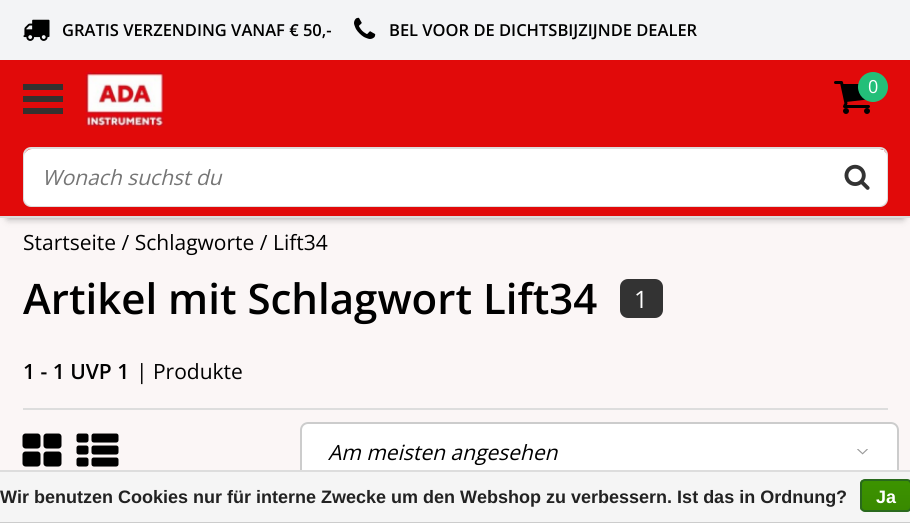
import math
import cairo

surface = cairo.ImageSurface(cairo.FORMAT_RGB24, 910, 523)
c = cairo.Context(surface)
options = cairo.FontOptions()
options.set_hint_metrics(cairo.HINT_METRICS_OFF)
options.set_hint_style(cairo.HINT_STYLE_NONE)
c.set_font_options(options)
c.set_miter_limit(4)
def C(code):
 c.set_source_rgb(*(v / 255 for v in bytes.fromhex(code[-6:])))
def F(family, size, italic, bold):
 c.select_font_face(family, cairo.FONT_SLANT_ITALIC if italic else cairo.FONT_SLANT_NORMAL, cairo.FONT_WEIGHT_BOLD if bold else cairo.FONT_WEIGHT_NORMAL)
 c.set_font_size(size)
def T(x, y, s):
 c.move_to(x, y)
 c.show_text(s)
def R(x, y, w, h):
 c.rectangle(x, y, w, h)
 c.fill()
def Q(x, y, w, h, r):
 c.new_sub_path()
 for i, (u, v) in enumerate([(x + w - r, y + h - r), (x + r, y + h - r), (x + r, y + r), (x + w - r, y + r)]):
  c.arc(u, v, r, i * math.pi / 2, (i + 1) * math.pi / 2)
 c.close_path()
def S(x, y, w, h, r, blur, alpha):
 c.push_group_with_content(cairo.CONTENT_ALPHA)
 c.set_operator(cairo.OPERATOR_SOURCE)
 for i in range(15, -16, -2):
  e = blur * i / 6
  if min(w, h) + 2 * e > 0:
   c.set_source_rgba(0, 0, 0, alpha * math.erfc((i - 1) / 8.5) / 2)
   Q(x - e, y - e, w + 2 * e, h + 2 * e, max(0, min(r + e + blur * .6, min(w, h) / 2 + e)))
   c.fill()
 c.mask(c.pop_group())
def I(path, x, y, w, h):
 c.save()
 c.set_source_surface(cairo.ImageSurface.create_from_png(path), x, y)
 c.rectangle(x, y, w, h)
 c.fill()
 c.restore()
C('fbf6f6')
c.paint()
C('f3f4f6')
R(0,0,910,60)
I('1.png',23,19,27,22)
F('Open Sans SemiBold',16.5,0,0)
C('000000')
T(62,36,'GRATIS VERZENDING VANAF € 50,-')
I('2.png',354,17,22,22)
T(389,36,'BEL VOOR DE DICHTSBIJZIJNDE DEALER')
C('000000')
S(8,75,895,143,0,4,.4)
C('e10a0a')
R(0,60,910,156)
C('dddddd')
R(0,216,910,2)
C('34312f')
R(23,84,40,6)
R(23,96,40,6)
R(23,108,40,6)
I('3.png',85,72,79,54)
I('4.png',834,81,36,33)
C('23bf79')
c.arc(873,87,15,0,2 * math.pi)
c.fill()
F('Open Sans',18,0,0)
C('ffffff')
T(868,93,'0')
Q(24,148,863,58,7)
C('dddddd')
c.stroke()
C('ffffff')
Q(24,149,863,57,8)
c.fill()
F('Open Sans',21,1,0)
C('757575')
T(42,185,'Wonach suchst du')
C('ffffff')
R(882,150,2,1)
I('5.png',844,164,26,26)
F('Open Sans',21,0,0)
C('000000')
T(23,250,'Startseite / Schlagworte / Lift34')
F('Open Sans SemiBold',42,0,0)
T(23,314,'Artikel mit Schlagwort Lift34')
C('333333')
Q(620,279,43,39,8)
c.fill()
F('Open Sans',24,0,0)
C('ffffff')
T(634,308,'1')
F('Open Sans SemiBold',21,0,0)
C('000000')
T(23,379,'1 - 1 UVP 1')
F('Open Sans',21,0,0)
T(136,379,'| Produkte')
C('dddddd')
R(23,408,865,2)
I('6.png',22,433,40,34)
I('7.png',76,433,43,34)
C('ffffff')
Q(300,422,599,61,8)
c.fill()
I('8.png',857,449,11,6)
Q(301,423,597,59,7)
C('cccccc')
c.stroke()
F('Open Sans',21,1,0)
C('000000')
T(328,460,'Am meisten angesehen')
C('f5f5f5')
R(0,472,910,50)
C('dddddd')
R(0,470,910,2)
C('cccccc')
R(0,522,910,1)
F('Liberation Sans',18,0,1)
C('222222')
T(0,503,'Wir benutzen Cookies nur für interne Zwecke um den Webshop zu verbessern. Ist das in Ordnung?')
c.save()
Q(860,479,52,33,5)
c.clip()
gradient = cairo.LinearGradient(886,480,886,510)
gradient.add_color_stop_rgba(0,0.235,0.576,0,1)
gradient.add_color_stop_rgba(1,0.224,0.541,0,1)
c.set_source(gradient)
R(860,480,50,30)
c.restore()
Q(861,480,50,31,4)
C('29691d')
c.stroke()
C('ffffff')
T(876,503,'Ja')
surface.write_to_png('o.png')
